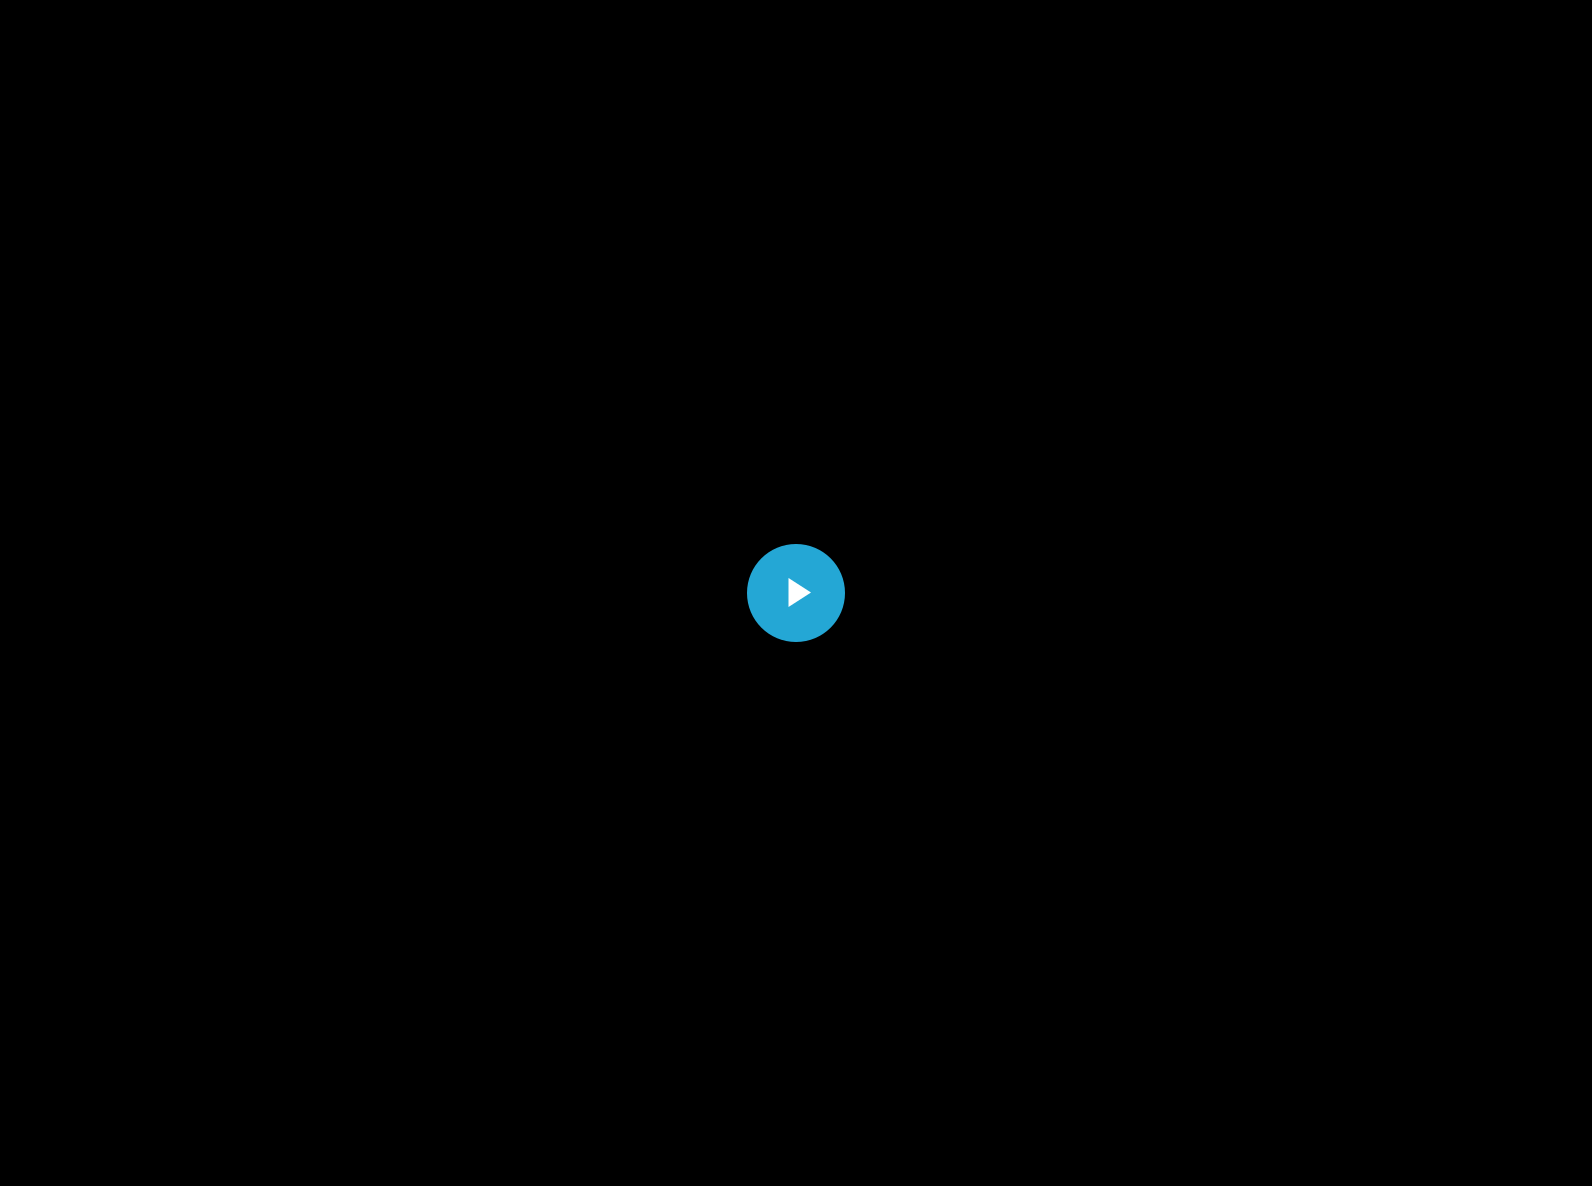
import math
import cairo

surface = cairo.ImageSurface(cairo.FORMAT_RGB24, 1592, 1186)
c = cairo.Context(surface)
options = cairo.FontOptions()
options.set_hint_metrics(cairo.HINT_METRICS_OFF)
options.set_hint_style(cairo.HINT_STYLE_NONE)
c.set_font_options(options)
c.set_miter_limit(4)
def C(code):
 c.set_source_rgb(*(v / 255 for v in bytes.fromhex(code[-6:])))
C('000000')
c.paint()
C('24a7d5')
c.arc(796,593,49,0,2 * math.pi)
c.fill()
C('ffffff')
c.new_path()
c.move_to(788.5,578)
c.line_to(788.5,607)
c.line_to(811,592.5)
c.close_path()
c.fill()
surface.write_to_png('o.png')
